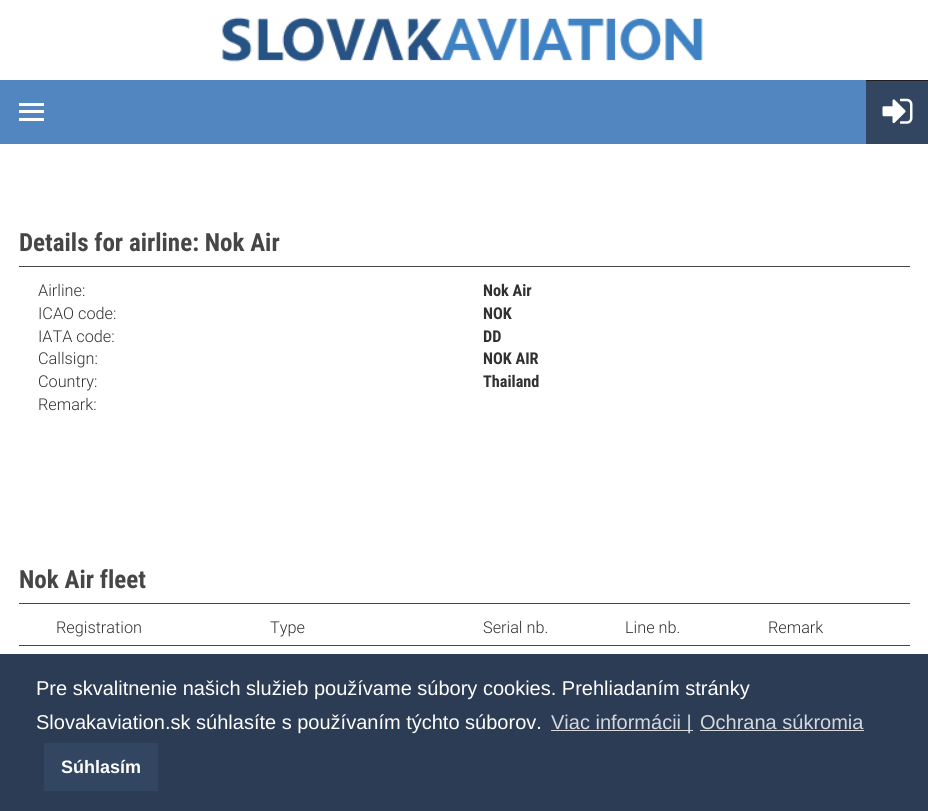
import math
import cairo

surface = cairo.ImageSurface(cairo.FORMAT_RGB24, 928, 811)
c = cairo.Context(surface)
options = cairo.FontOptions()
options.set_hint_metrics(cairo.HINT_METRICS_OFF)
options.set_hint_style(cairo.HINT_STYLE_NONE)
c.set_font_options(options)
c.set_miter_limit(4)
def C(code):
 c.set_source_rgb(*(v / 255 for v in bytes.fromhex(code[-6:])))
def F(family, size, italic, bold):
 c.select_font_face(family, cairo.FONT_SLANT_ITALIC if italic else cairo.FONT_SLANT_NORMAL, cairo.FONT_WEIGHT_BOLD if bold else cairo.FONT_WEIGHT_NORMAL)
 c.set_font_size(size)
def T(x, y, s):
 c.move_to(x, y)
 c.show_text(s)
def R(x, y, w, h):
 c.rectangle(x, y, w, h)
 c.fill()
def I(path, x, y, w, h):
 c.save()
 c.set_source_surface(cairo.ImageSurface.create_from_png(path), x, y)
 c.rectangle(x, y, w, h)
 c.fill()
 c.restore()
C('ffffff')
c.paint()
I('1.png',222,17,481,45)
C('5286c1')
R(0,80,866,64)
C('ffffff')
R(19,103,25,3)
R(19,110,25,3)
R(19,118,25,3)
C('1f1f1f')
R(866,80,62,1)
C('324661')
R(866,81,62,63)
I('2.png',882,98,31,26)
C('464646')
R(19,266,891,1)
F('Roboto Condensed',25,0,1)
T(19,251,'Details for airline: Nok Air')
F('Roboto Light',16.25,0,0)
C('313131')
T(38,296,'Airline:')
F('Roboto Condensed',16.25,0,1)
T(483,296,'Nok Air')
F('Roboto Light',16.25,0,0)
T(38,319,'ICAO code:')
F('Roboto Condensed',16.25,0,1)
T(483,319,'NOK')
F('Roboto Light',16.25,0,0)
T(38,342,'IATA code:')
F('Roboto Condensed',16.25,0,1)
T(483,342,'DD')
F('Roboto Light',16.25,0,0)
T(38,364,'Callsign:')
F('Roboto Condensed',16.25,0,1)
T(483,364,'NOK AIR')
F('Roboto Light',16.25,0,0)
T(38,387,'Country:')
F('Roboto Condensed',16.25,0,1)
T(483,387,'Thailand')
F('Roboto Light',16.25,0,0)
T(38,410,'Remark:')
C('464646')
R(19,603,891,1)
F('Roboto Condensed',25,0,1)
T(19,588,'Nok Air fleet')
R(19,645,891,1)
F('Roboto Light',16.25,0,0)
C('313131')
T(56,633,'Registration')
T(270,633,'Type')
T(483,633,'Serial nb.')
T(625,633,'Line nb.')
T(768,633,'Remark')
C('2c3c55')
R(0,654,928,157)
F('Liberation Sans',20,0,0)
C('ffffff')
T(36,695,'Pre skvalitnenie našich služieb používame súbory cookies. Prehliadaním stránky')
T(36,729,'Slovakaviation.sk súhlasíte s používaním týchto súborov.')
C('d5d8dd')
R(551,730,142,1)
T(551,729,'Viac informácii |')
T(700,729,'Ochrana súkromia')
R(700,730,164,1)
C('324661')
R(44,743,114,48)
F('Liberation Sans',18,0,1)
C('ffffff')
T(61,773,'Súhlasím')
surface.write_to_png('o.png')
